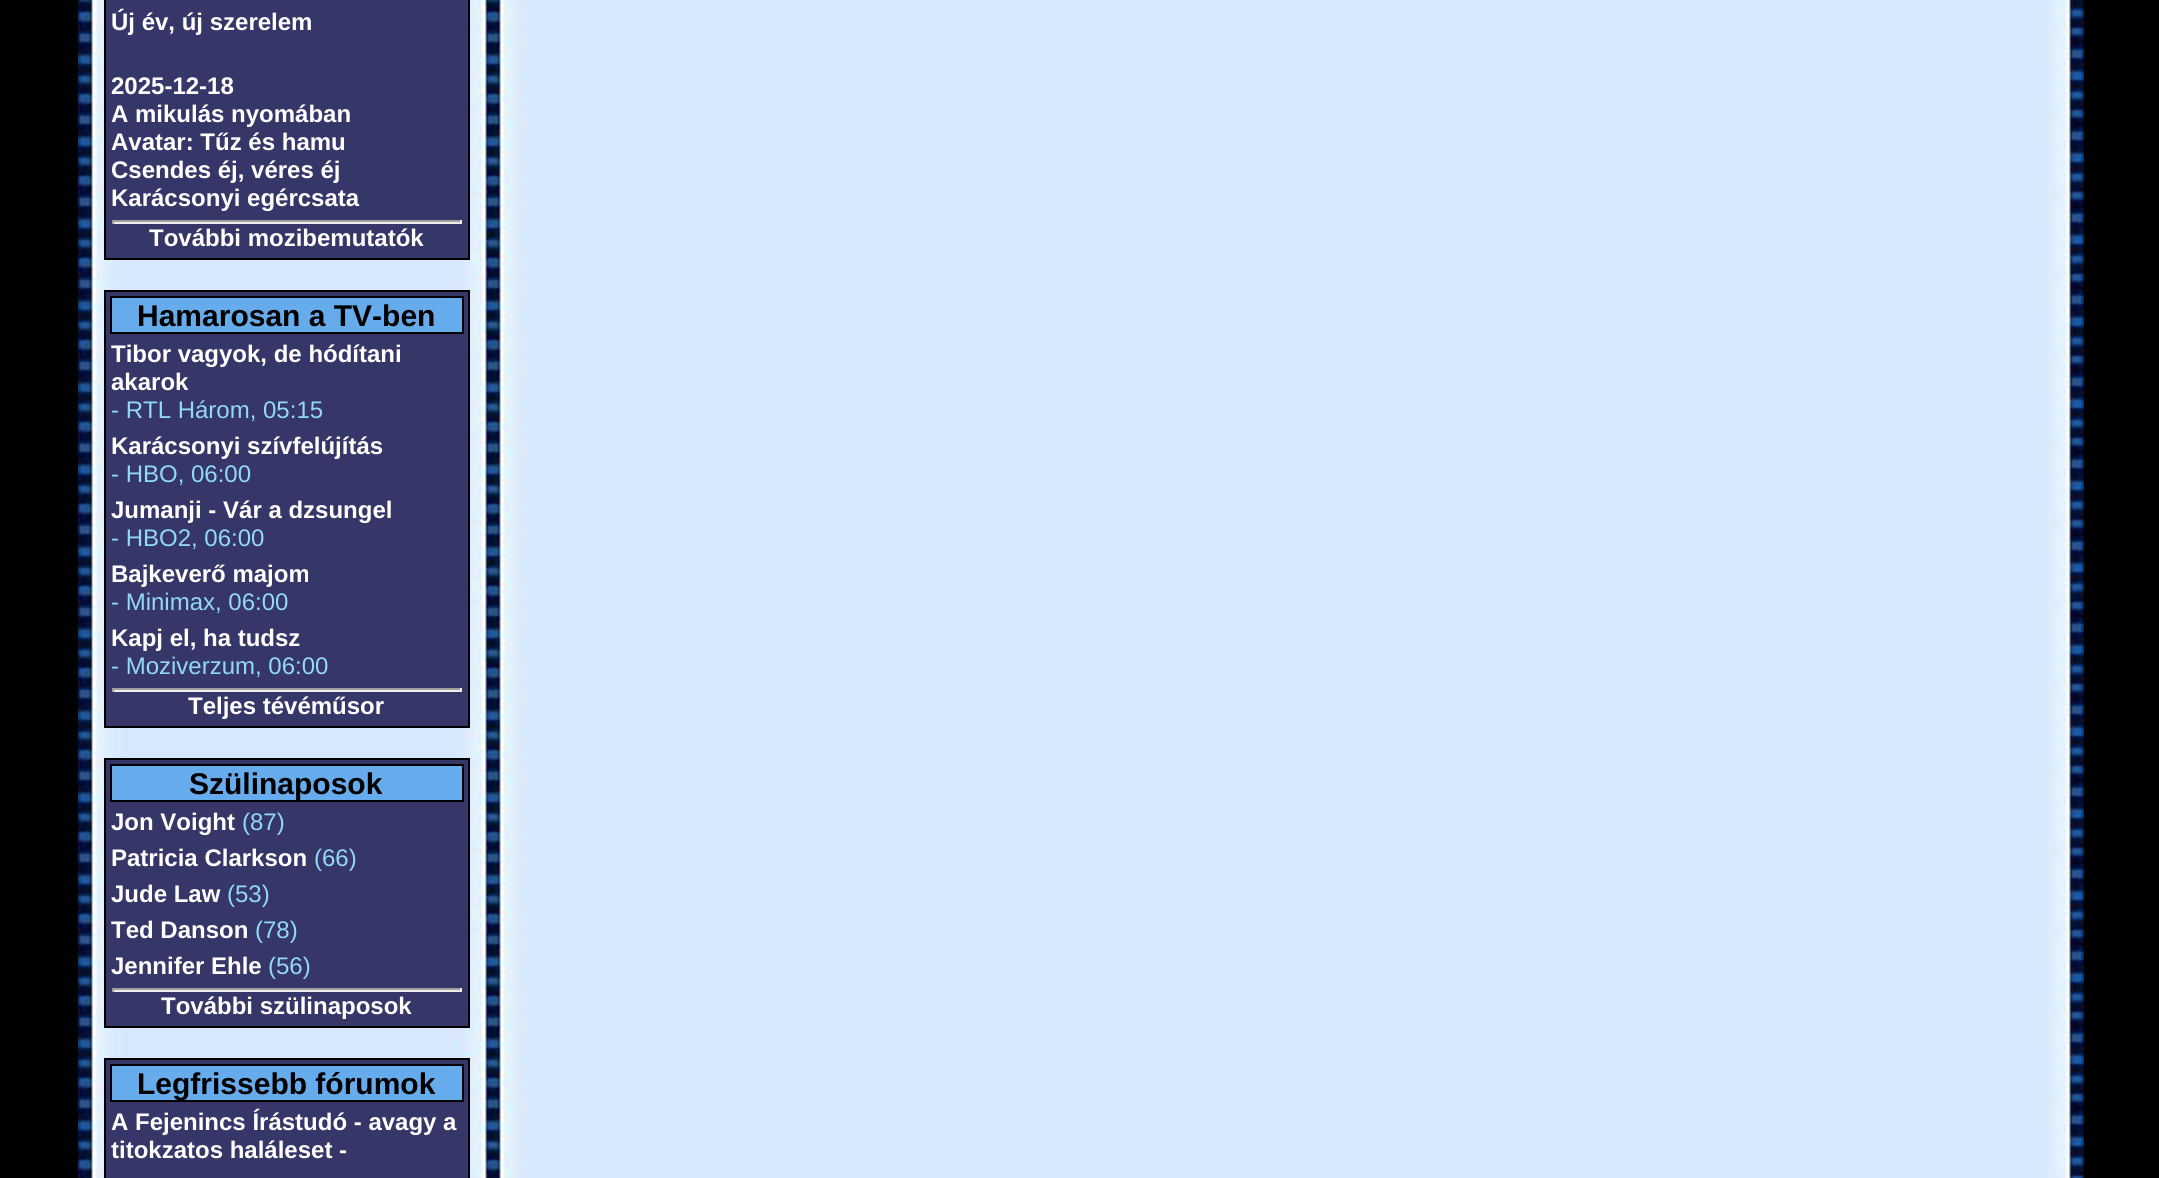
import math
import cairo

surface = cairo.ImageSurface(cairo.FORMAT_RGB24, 2159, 1178)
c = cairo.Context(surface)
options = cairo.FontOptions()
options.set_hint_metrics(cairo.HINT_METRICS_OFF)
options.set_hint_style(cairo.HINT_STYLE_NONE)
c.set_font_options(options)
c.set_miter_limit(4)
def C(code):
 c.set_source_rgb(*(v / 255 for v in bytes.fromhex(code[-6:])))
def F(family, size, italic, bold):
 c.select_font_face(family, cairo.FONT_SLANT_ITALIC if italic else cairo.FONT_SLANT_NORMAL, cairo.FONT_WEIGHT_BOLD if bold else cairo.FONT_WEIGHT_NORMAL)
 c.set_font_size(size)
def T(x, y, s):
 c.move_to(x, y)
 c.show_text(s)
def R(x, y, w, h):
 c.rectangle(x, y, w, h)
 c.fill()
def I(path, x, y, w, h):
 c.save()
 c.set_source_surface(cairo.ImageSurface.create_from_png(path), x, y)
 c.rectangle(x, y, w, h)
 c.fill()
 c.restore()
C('000000')
c.paint()
I('1.png',78,0,2006,1178)
C('363768')
c.rectangle(105,-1,364,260)
c.fill_preserve()
C('000000')
c.stroke()
F('Liberation Sans',24,0,1)
C('ffffff')
T(111,30,'Új év, új szerelem')
T(111,94,'2025-12-18')
T(111,122,'A mikulás nyomában')
T(111,150,'Avatar: Tűz és hamu')
T(111,178,'Csendes éj, véres éj')
T(111,206,'Karácsonyi egércsata')
C('9f9f9f')
R(112,220,350,2)
C('eeeeee')
R(460,220,2,4)
R(112,222,350,2)
C('9f9f9f')
R(112,220,2,4)
C('ffffff')
T(149,246,'További mozibemutatók')
C('363768')
c.rectangle(105,291,364,436)
c.fill_preserve()
C('000000')
c.stroke()
C('66abeb')
c.rectangle(111,297,352,36)
c.fill_preserve()
C('000000')
c.stroke()
F('Liberation Sans',30,0,1)
T(137,326,'Hamarosan a TV-ben')
F('Liberation Sans',24,0,1)
C('ffffff')
T(111,362,'Tibor vagyok, de hódítani')
T(111,390,'akarok')
F('Liberation Sans',24,0,0)
C('92d8f8')
T(111,418,'- RTL Három, 05:15')
F('Liberation Sans',24,0,1)
C('ffffff')
T(111,454,'Karácsonyi szívfelújítás')
F('Liberation Sans',24,0,0)
C('92d8f8')
T(111,482,'- HBO, 06:00')
F('Liberation Sans',24,0,1)
C('ffffff')
T(111,518,'Jumanji - Vár a dzsungel')
F('Liberation Sans',24,0,0)
C('92d8f8')
T(111,546,'- HBO2, 06:00')
F('Liberation Sans',24,0,1)
C('ffffff')
T(111,582,'Bajkeverő majom')
F('Liberation Sans',24,0,0)
C('92d8f8')
T(111,610,'- Minimax, 06:00')
F('Liberation Sans',24,0,1)
C('ffffff')
T(111,646,'Kapj el, ha tudsz')
F('Liberation Sans',24,0,0)
C('92d8f8')
T(111,674,'- Moziverzum, 06:00')
C('9f9f9f')
R(112,688,350,2)
C('eeeeee')
R(460,688,2,4)
R(112,690,350,2)
C('9f9f9f')
R(112,688,2,4)
F('Liberation Sans',24,0,1)
C('ffffff')
T(188,714,'Teljes tévéműsor')
C('363768')
c.rectangle(105,759,364,268)
c.fill_preserve()
C('000000')
c.stroke()
C('66abeb')
c.rectangle(111,765,352,36)
c.fill_preserve()
C('000000')
c.stroke()
F('Liberation Sans',30,0,1)
T(189,794,'Szülinaposok')
F('Liberation Sans',24,0,1)
C('ffffff')
T(111,830,'Jon Voight')
F('Liberation Sans',24,0,0)
C('92d8f8')
T(242,830,'(87)')
F('Liberation Sans',24,0,1)
C('ffffff')
T(111,866,'Patricia Clarkson')
F('Liberation Sans',24,0,0)
C('92d8f8')
T(314,866,'(66)')
F('Liberation Sans',24,0,1)
C('ffffff')
T(111,902,'Jude Law')
F('Liberation Sans',24,0,0)
C('92d8f8')
T(227,902,'(53)')
F('Liberation Sans',24,0,1)
C('ffffff')
T(111,938,'Ted Danson')
F('Liberation Sans',24,0,0)
C('92d8f8')
T(255,938,'(78)')
F('Liberation Sans',24,0,1)
C('ffffff')
T(111,974,'Jennifer Ehle')
F('Liberation Sans',24,0,0)
C('92d8f8')
T(268,974,'(56)')
C('9f9f9f')
R(112,988,350,2)
C('eeeeee')
R(460,988,2,4)
R(112,990,350,2)
C('9f9f9f')
R(112,988,2,4)
F('Liberation Sans',24,0,1)
C('ffffff')
T(161,1014,'További szülinaposok')
C('363768')
c.rectangle(105,1059,364,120)
c.fill_preserve()
C('000000')
c.stroke()
C('66abeb')
c.rectangle(111,1065,352,36)
c.fill_preserve()
C('000000')
c.stroke()
F('Liberation Sans',30,0,1)
T(137,1094,'Legfrissebb fórumok')
F('Liberation Sans',24,0,1)
C('ffffff')
T(111,1130,'A Fejenincs Írástudó - avagy a')
T(111,1158,'titokzatos haláleset -')
surface.write_to_png('o.png')
